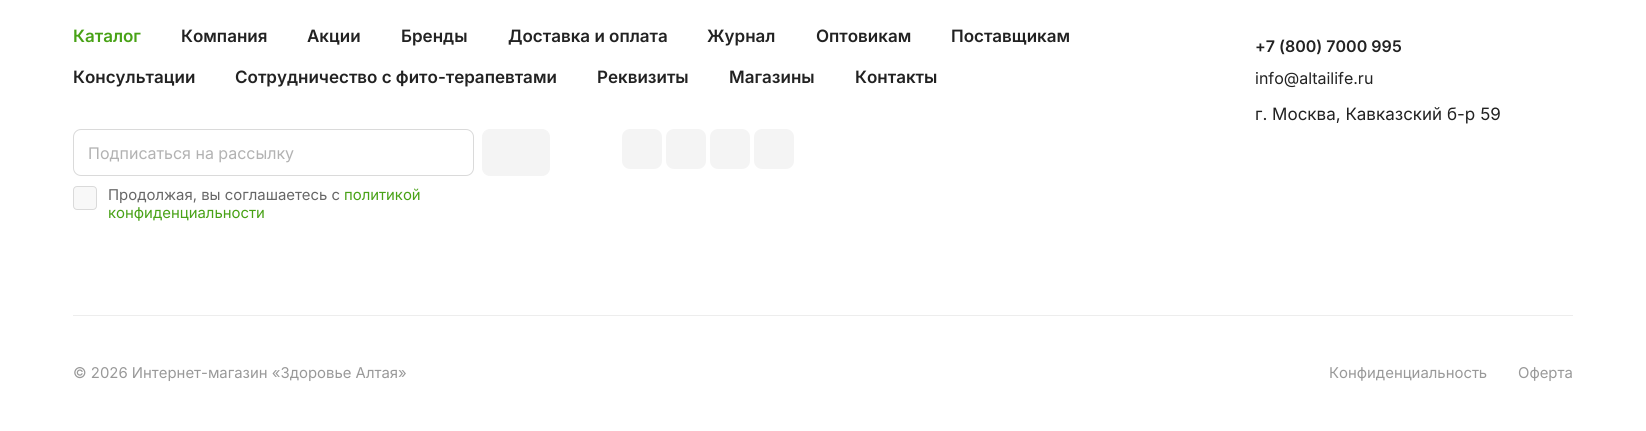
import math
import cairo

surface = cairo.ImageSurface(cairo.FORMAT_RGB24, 1646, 431)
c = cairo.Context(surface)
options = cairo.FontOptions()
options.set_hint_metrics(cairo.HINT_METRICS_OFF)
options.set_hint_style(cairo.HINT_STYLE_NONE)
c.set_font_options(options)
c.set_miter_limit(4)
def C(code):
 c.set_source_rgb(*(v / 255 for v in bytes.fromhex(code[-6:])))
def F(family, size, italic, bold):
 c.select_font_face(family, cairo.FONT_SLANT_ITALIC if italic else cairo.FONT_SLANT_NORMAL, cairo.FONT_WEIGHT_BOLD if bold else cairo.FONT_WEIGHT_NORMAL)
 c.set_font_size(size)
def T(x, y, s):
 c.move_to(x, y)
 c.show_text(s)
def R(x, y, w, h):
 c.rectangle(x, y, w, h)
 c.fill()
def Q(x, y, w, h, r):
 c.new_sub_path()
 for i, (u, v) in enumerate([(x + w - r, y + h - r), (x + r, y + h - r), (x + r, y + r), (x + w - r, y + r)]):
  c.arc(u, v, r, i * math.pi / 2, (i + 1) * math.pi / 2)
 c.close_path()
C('ffffff')
c.paint()
F('Inter SemiBold',17,0,0)
C('48a216')
T(73,42,'Каталог')
C('222222')
T(181,42,'Компания')
T(307,42,'Акции')
T(401,42,'Бренды')
T(508,42,'Доставка и оплата')
T(707,42,'Журнал')
T(816,42,'Оптовикам')
T(951,42,'Поставщикам')
T(73,83,'Консультации')
T(235,83,'Сотрудничество с фито-терапевтами')
T(597,83,'Реквизиты')
T(729,83,'Магазины')
T(855,83,'Контакты')
Q(73.5,129.5,400,46,7.5)
C('dadada')
c.set_line_width(1)
c.stroke()
F('Inter',16,0,0)
C('b2b2b2')
T(88,159,'Подписаться на рассылку')
C('f4f4f4')
Q(482.5,129.5,67,46,7.5)
c.fill_preserve()
c.stroke()
C('f8f8f8')
Q(73.5,186.5,23,23,3.5)
c.fill_preserve()
C('dadada')
c.stroke()
F('Inter',14.9,0,0)
C('666666')
T(108,200,'Продолжая, вы соглашаетесь с')
C('48a216')
T(344,200,'политикой')
T(108,218,'конфиденциальности')
C('f4f4f4')
Q(622,129,40,40,8)
c.fill()
Q(666,129,40,40,8)
c.fill()
Q(710,129,40,40,8)
c.fill()
Q(754,129,40,40,8)
c.fill()
F('Inter SemiBold',16,0,0)
C('222222')
T(1255,52,'+7 (800) 7000 995')
F('Inter',16,0,0)
T(1255,84,'info@altailife.ru')
F('Inter',17,0,0)
T(1255,120,'г. Москва, Кавказский б-р 59')
C('ededed')
R(73,315,1500,1)
F('Inter',14.9,0,0)
C('999999')
T(73,378,'© 2026 Интернет-магазин «Здоровье Алтая»')
T(1329,378,'Конфиденциальность')
T(1518,378,'Оферта')
surface.write_to_png('o.png')
